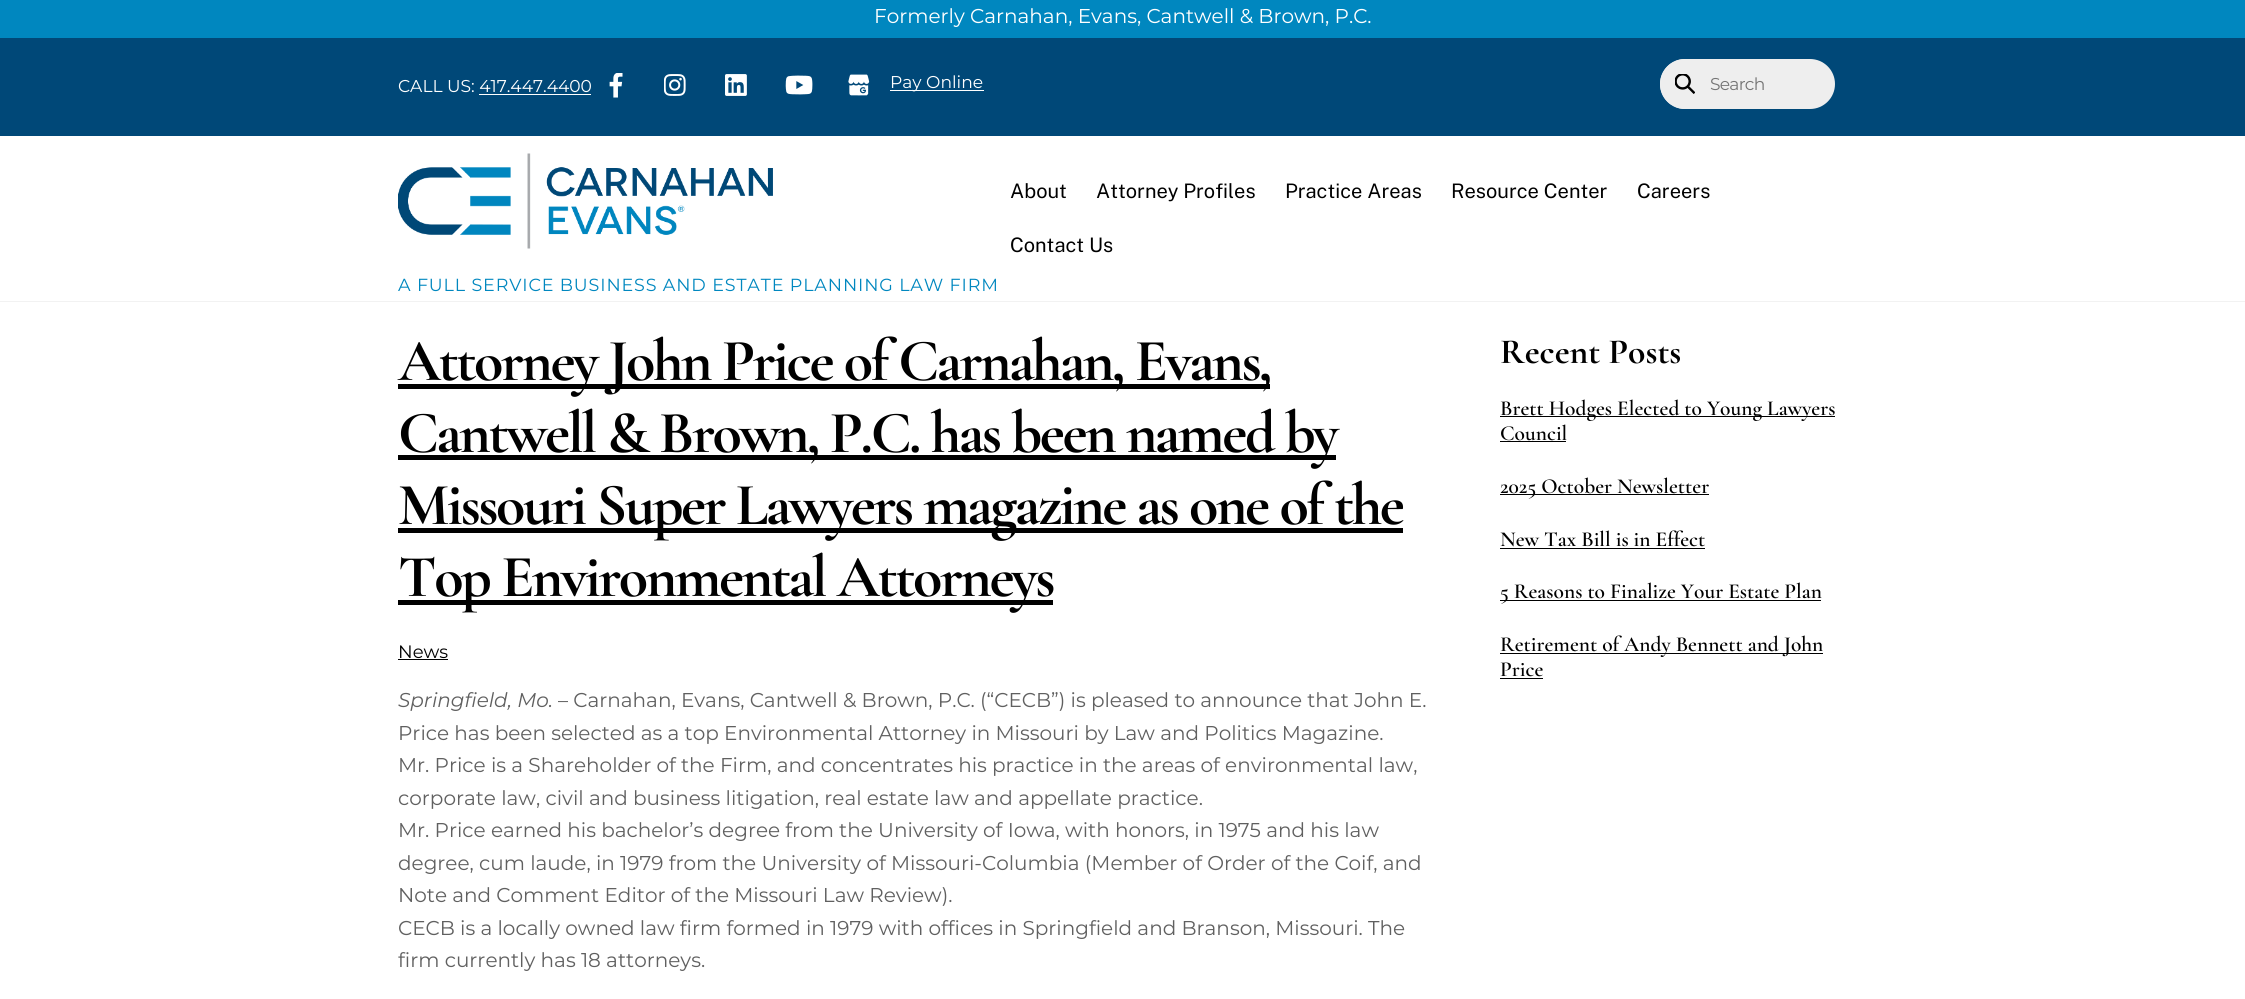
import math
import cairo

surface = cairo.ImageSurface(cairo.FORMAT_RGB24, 2245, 999)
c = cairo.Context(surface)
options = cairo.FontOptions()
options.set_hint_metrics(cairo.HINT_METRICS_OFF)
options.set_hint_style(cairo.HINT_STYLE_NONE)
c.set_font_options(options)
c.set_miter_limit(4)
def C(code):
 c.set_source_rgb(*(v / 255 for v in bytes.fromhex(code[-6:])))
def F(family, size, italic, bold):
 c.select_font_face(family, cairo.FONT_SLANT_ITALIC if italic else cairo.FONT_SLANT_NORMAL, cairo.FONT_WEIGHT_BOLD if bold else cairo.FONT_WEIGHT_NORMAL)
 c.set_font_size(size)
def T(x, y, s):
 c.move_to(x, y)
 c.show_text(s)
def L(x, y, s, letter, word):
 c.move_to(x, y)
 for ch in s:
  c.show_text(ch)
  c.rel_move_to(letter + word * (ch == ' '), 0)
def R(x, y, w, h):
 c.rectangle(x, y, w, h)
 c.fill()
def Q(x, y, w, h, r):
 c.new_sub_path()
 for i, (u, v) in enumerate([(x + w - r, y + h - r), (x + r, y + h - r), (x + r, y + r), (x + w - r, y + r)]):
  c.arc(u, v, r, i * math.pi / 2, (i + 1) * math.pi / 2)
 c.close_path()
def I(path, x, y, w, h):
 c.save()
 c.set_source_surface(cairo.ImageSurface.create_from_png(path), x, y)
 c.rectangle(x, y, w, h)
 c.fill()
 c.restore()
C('ffffff')
c.paint()
C('f2f2f2')
R(0,301,2245,1)
C('0087bf')
R(0,0,2245,38)
F('Montserrat',20,0,0)
C('ffffff')
T(874,23,'Formerly Carnahan, Evans, Cantwell & Brown, P.C.')
C('004878')
R(0,38,2245,98)
F('Montserrat',17.1,0,0)
C('ffffff')
T(398,92,'CALL US: 417.447.4400')
R(479,94,112,1)
I('1.png',609,73,14,25)
I('2.png',664,74,22,22)
I('3.png',725,74,22,22)
I('4.png',785,75,28,20)
I('5.png',848,74,22,22)
R(890,90,94,1)
T(890,88,'Pay Online')
C('eeeeee')
Q(1660,59,175,50,25)
c.fill()
c.arc(1685,84,25,0,2 * math.pi)
c.fill()
I('6.png',1675,74,20,20)
C('757575')
L(1710,90,'Search',-.75,0)
F('Public Sans',20,0,0)
C('000000')
T(1010,198,'About')
T(1096,198,'Attorney Profiles')
T(1285,198,'Practice Areas')
T(1451,198,'Resource Center')
T(1637,198,'Careers')
T(1010,252,'Contact Us')
I('7.png',398,153,375,96)
F('Montserrat',17.5,0,0)
C('0087bf')
L(398,291,'A FULL SERVICE BUSINESS AND ESTATE PLANNING LAW FIRM',.88,0)
C('000000')
R(398,384,872,5)
F('Cormorant Garamond',60,0,1)
L(398,380,'Attorney John Price of Carnahan, Evans,',-2.4,0)
R(398,455,938,5)
L(398,452,'Cantwell & Brown, P.C. has been named by',-2.4,0)
R(398,528,1005,5)
L(398,524,'Missouri Super Lawyers magazine as one of the',-2.4,0)
R(398,600,655,5)
L(398,596,'Top Environmental Attorneys',-2.4,0)
F('Montserrat',18,0,0)
T(398,658,'News')
R(398,659,50,1)
F('Montserrat',20,1,0)
C('606060')
T(398,707,'Springfield, Mo.')
F('Montserrat',20,0,0)
T(558,707,'– Carnahan, Evans, Cantwell & Brown, P.C. (“CECB”) is pleased to announce that John E.')
T(398,740,'Price has been selected as a top Environmental Attorney in Missouri by Law and Politics Magazine.')
T(398,772,'Mr. Price is a Shareholder of the Firm, and concentrates his practice in the areas of environmental law,')
T(398,805,'corporate law, civil and business litigation, real estate law and appellate practice.')
T(398,837,'Mr. Price earned his bachelor’s degree from the University of Iowa, with honors, in 1975 and his law')
T(398,870,'degree, cum laude, in 1979 from the University of Missouri-Columbia (Member of Order of the Coif, and')
T(398,902,'Note and Comment Editor of the Missouri Law Review).')
T(398,935,'CECB is a locally owned law firm formed in 1979 with offices in Springfield and Branson, Missouri. The')
T(398,967,'firm currently has 18 attorneys.')
F('Cormorant Garamond',35.5,0,1)
C('000000')
T(1500,363,'Recent Posts')
R(1500,416,335,1)
F('Cormorant Garamond SemiBold',21.4,0,0)
T(1500,415,'Brett Hodges Elected to Young Lawyers')
T(1500,440,'Council')
R(1500,441,66,1)
R(1500,494,209,1)
T(1500,493,'2025 October Newsletter')
T(1500,546,'New Tax Bill is in Effect')
R(1500,548,205,1)
R(1500,600,321,1)
T(1500,598,'5 Reasons to Finalize Your Estate Plan')
R(1500,653,323,1)
T(1500,651,'Retirement of Andy Bennett and John')
T(1500,676,'Price')
R(1500,678,43,1)
surface.write_to_png('o.png')
